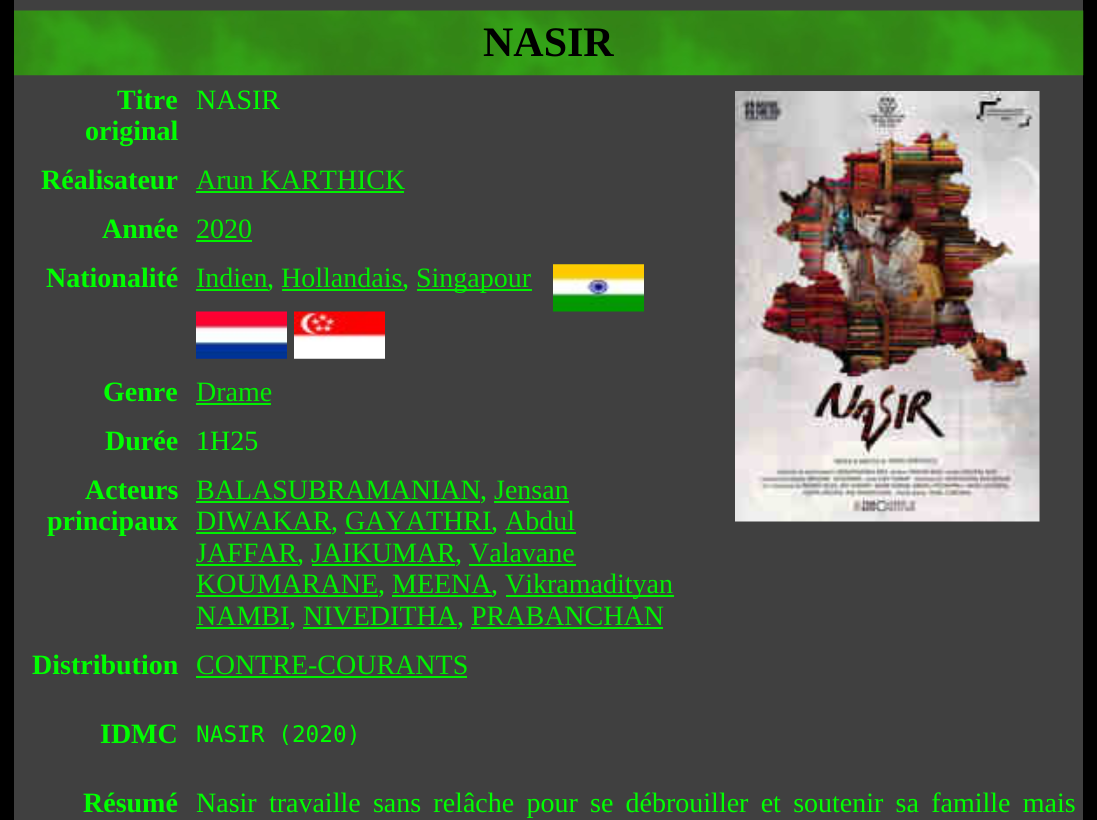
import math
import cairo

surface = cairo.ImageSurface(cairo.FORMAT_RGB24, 1097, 820)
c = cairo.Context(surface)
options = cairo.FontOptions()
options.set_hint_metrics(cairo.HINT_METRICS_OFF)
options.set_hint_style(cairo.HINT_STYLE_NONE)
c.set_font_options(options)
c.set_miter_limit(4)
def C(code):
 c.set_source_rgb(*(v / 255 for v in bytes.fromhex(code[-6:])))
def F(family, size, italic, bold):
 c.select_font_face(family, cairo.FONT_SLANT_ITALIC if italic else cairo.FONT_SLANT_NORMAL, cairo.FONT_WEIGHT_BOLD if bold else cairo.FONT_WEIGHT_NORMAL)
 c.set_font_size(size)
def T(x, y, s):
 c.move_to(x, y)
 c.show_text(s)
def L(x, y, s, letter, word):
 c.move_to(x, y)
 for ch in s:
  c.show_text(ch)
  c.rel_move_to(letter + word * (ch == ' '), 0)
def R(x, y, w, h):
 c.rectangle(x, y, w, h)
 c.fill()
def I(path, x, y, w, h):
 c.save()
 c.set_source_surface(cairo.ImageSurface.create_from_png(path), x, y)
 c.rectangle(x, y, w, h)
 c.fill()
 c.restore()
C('000000')
c.paint()
C('404040')
R(14,0,1069,11)
R(14,75,1069,745)
I('1.png',14,10,1070,66)
F('Liberation Serif',42,0,1)
C('000000')
T(483,56,'NASIR')
F('Liberation Serif',28,0,1)
C('00ff00')
T(117,109,'Titre')
T(85,140,'original')
F('Liberation Serif',28,0,0)
T(196,109,'NASIR')
I('2.png',735,91,305,431)
F('Liberation Serif',28,0,1)
T(41,189,'Réalisateur')
F('Liberation Serif',28,0,0)
C('00f000')
T(196,189,'Arun KARTHICK')
R(196,191,208,2)
F('Liberation Serif',28,0,1)
C('00ff00')
T(102,238,'Année')
F('Liberation Serif',28,0,0)
C('00f000')
T(196,238,'2020')
R(196,240,56,2)
F('Liberation Serif',28,0,1)
C('00ff00')
T(46,287,'Nationalité')
F('Liberation Serif',28,0,0)
C('00f000')
T(196,287,'Indien')
R(196,289,72,2)
C('00ff00')
T(267,287,',')
C('00f000')
T(281,287,'Hollandais')
R(282,289,121,2)
C('00ff00')
T(402,287,',')
C('00f000')
R(417,289,115,2)
T(416,287,'Singapour')
I('3.png',553,264,91,48)
I('4.png',196,311,91,48)
I('5.png',294,311,91,48)
F('Liberation Serif',28,0,1)
C('00ff00')
T(103,401,'Genre')
F('Liberation Serif',28,0,0)
C('00f000')
T(196,401,'Drame')
R(196,403,75,2)
F('Liberation Serif',28,0,1)
C('00ff00')
T(105,450,'Durée')
F('Liberation Serif',28,0,0)
T(196,450,'1H25')
F('Liberation Serif',28,0,1)
T(85,499,'Acteurs')
T(47,530,'principaux')
F('Liberation Serif',28,0,0)
C('00f000')
T(196,499,'BALASUBRAMANIAN')
R(196,501,284,2)
C('00ff00')
T(480,499,',')
C('00f000')
T(494,499,'Jensan')
R(494,501,75,2)
T(196,530,'DIWAKAR')
R(196,532,135,2)
C('00ff00')
T(331,530,',')
C('00f000')
T(345,530,'GAYATHRI')
R(345,532,147,2)
C('00ff00')
T(491,530,',')
C('00f000')
T(505,530,'Abdul')
R(506,532,70,2)
T(196,562,'JAFFAR')
R(196,564,102,2)
C('00ff00')
T(297,562,',')
C('00f000')
T(311,562,'JAIKUMAR')
R(312,564,143,2)
C('00ff00')
T(455,562,',')
C('00f000')
T(469,562,'Valavane')
R(469,564,107,2)
T(196,593,'KOUMARANE')
R(196,595,182,2)
T(392,593,'MEENA')
R(392,595,100,2)
R(506,595,168,2)
T(505,593,'Vikramadityan')
C('00ff00')
T(378,593,',')
T(491,593,',')
C('00f000')
T(196,625,'NAMBI')
R(196,627,93,2)
C('00ff00')
T(289,625,',')
C('00f000')
T(303,625,'NIVEDITHA')
R(303,627,154,2)
C('00ff00')
T(457,625,',')
C('00f000')
T(471,625,'PRABANCHAN')
R(471,627,192,2)
F('Liberation Serif',28,0,1)
C('00ff00')
T(32,674,'Distribution')
F('Liberation Serif',28,0,0)
C('00f000')
T(196,674,'CONTRE-COURANTS')
R(196,676,271,2)
F('Liberation Serif',28,0,1)
C('00ff00')
T(100,743,'IDMC')
F('DejaVu Sans Mono',22.75,0,0)
T(196,742,'NASIR (2020)')
F('Liberation Serif',28,0,1)
T(83,812,'Résumé')
F('Liberation Serif',28,0,0)
L(196,812,'Nasir travaille sans relâche pour se débrouiller et soutenir sa famille mais',0,5.25)
surface.write_to_png('o.png')
